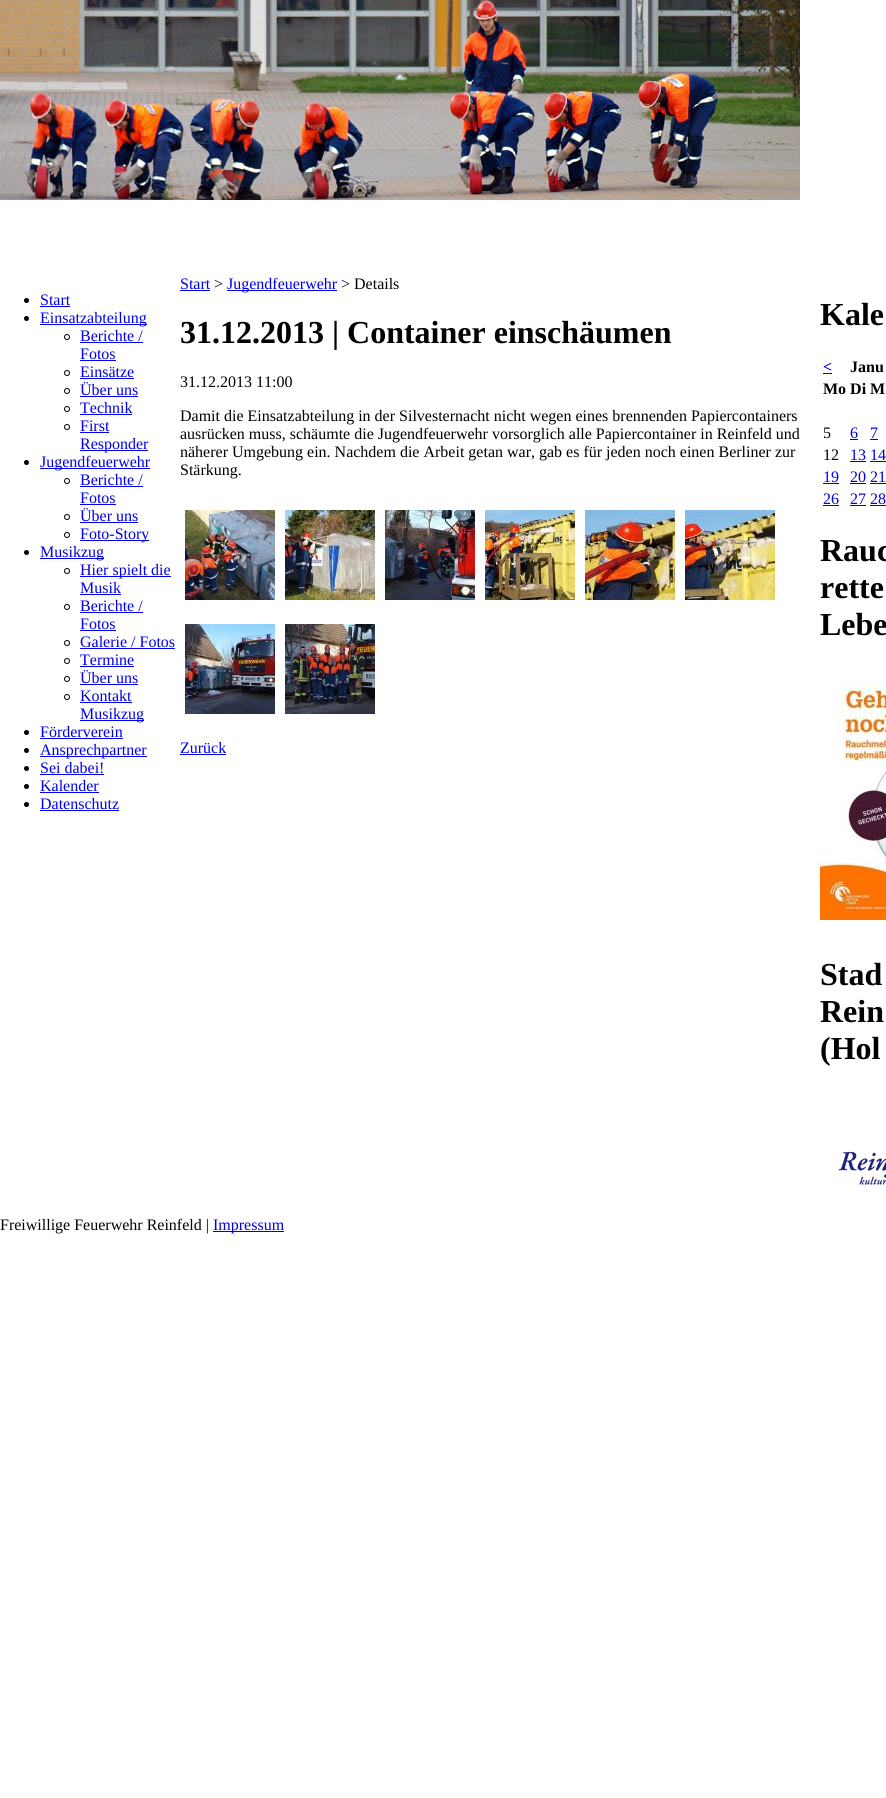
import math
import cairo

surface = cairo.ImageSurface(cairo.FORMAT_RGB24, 886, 1798)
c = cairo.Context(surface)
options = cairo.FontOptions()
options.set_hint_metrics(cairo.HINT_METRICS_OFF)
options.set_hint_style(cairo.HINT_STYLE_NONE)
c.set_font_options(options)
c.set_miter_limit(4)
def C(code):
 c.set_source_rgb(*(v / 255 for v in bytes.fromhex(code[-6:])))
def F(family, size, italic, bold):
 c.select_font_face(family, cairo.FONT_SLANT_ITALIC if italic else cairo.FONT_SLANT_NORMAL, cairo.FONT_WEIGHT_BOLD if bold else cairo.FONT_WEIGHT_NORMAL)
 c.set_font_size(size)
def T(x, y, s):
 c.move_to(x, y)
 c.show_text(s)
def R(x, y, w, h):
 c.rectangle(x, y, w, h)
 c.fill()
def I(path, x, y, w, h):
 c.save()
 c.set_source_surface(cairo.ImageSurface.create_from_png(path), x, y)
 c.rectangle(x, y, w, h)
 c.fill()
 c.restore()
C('ffffff')
c.paint()
I('1.png',0,0,800,200)
C('000000')
c.arc(26.5,300.5,2.5,0,2 * math.pi)
c.fill()
F('Liberation Serif',16,0,0)
C('0000ee')
T(40,305,'Start')
R(40,306,30,1)
C('000000')
c.new_path()
c.arc(26.5,318.5,2.5,0,2 * math.pi)
c.fill()
C('0000ee')
R(40,324,107,1)
T(40,323,'Einsatzabteilung')
c.new_path()
c.arc(67,337,2.5,0,2 * math.pi)
C('000000')
c.set_line_width(1)
c.stroke()
C('0000ee')
T(80,341,'Berichte /')
R(80,342,63,1)
T(80,359,'Fotos')
R(80,360,36,1)
c.new_path()
c.arc(67,373,2.5,0,2 * math.pi)
C('000000')
c.stroke()
C('0000ee')
T(80,377,'Einsätze')
R(80,378,54,1)
c.new_path()
c.arc(67,391,2.5,0,2 * math.pi)
C('000000')
c.stroke()
C('0000ee')
T(80,395,'Über uns')
R(80,396,58,1)
c.new_path()
c.arc(67,409,2.5,0,2 * math.pi)
C('000000')
c.stroke()
C('0000ee')
T(80,413,'Technik')
R(80,414,52,1)
c.new_path()
c.arc(67,427,2.5,0,2 * math.pi)
C('000000')
c.stroke()
C('0000ee')
T(80,431,'First')
R(80,432,29,1)
R(80,450,68,1)
T(80,449,'Responder')
C('000000')
c.new_path()
c.arc(26.5,462.5,2.5,0,2 * math.pi)
c.fill()
C('0000ee')
R(40,468,110,1)
T(40,467,'Jugendfeuerwehr')
c.new_path()
c.arc(67,481,2.5,0,2 * math.pi)
C('000000')
c.stroke()
C('0000ee')
T(80,485,'Berichte /')
R(80,486,63,1)
T(80,503,'Fotos')
R(80,504,36,1)
c.new_path()
c.arc(67,517,2.5,0,2 * math.pi)
C('000000')
c.stroke()
C('0000ee')
T(80,521,'Über uns')
R(80,522,58,1)
c.new_path()
c.arc(67,535,2.5,0,2 * math.pi)
C('000000')
c.stroke()
C('0000ee')
R(80,540,69,1)
T(80,539,'Foto-Story')
C('000000')
c.new_path()
c.arc(26.5,552.5,2.5,0,2 * math.pi)
c.fill()
C('0000ee')
R(40,558,64,1)
T(40,557,'Musikzug')
c.new_path()
c.arc(67,571,2.5,0,2 * math.pi)
C('000000')
c.stroke()
C('0000ee')
R(80,576,91,1)
T(80,575,'Hier spielt die')
T(80,593,'Musik')
R(80,594,41,1)
c.new_path()
c.arc(67,607,2.5,0,2 * math.pi)
C('000000')
c.stroke()
C('0000ee')
T(80,611,'Berichte /')
R(80,612,63,1)
T(80,629,'Fotos')
R(80,630,36,1)
c.new_path()
c.arc(67,643,2.5,0,2 * math.pi)
C('000000')
c.stroke()
C('0000ee')
T(80,647,'Galerie / Fotos')
R(80,648,95,1)
c.new_path()
c.arc(67,661,2.5,0,2 * math.pi)
C('000000')
c.stroke()
C('0000ee')
T(80,665,'Termine')
R(80,666,54,1)
c.new_path()
c.arc(67,679,2.5,0,2 * math.pi)
C('000000')
c.stroke()
C('0000ee')
T(80,683,'Über uns')
R(80,684,58,1)
c.new_path()
c.arc(67,697,2.5,0,2 * math.pi)
C('000000')
c.stroke()
C('0000ee')
T(80,701,'Kontakt')
R(80,702,52,1)
R(80,720,64,1)
T(80,719,'Musikzug')
C('000000')
c.new_path()
c.arc(26.5,732.5,2.5,0,2 * math.pi)
c.fill()
C('0000ee')
T(40,737,'Förderverein')
R(40,738,83,1)
C('000000')
c.new_path()
c.arc(26.5,750.5,2.5,0,2 * math.pi)
c.fill()
C('0000ee')
R(40,756,107,1)
T(40,755,'Ansprechpartner')
C('000000')
c.new_path()
c.arc(26.5,768.5,2.5,0,2 * math.pi)
c.fill()
C('0000ee')
T(40,773,'Sei dabei!')
R(40,774,64,1)
C('000000')
c.new_path()
c.arc(26.5,786.5,2.5,0,2 * math.pi)
c.fill()
C('0000ee')
T(40,791,'Kalender')
R(40,792,59,1)
C('000000')
c.new_path()
c.arc(26.5,804.5,2.5,0,2 * math.pi)
c.fill()
C('0000ee')
T(40,809,'Datenschutz')
R(40,810,79,1)
T(180,289,'Start')
R(180,290,30,1)
C('000000')
T(214,289,'>')
C('0000ee')
R(227,290,110,1)
T(227,289,'Jugendfeuerwehr')
C('000000')
T(341,289,'> Details')
F('Liberation Serif',32,0,1)
T(180,343,'31.12.2013 | Container einschäumen')
F('Liberation Serif',16,0,0)
T(180,387,'31.12.2013 11:00')
T(180,421,'Damit die Einsatzabteilung in der Silvesternacht nicht wegen eines brennenden Papiercontainers')
T(180,439,'ausrücken muss, schäumte die Jugendfeuerwehr vorsorglich alle Papiercontainer in Reinfeld und')
T(180,457,'näherer Umgebung ein. Nachdem die Arbeit getan war, gab es für jeden noch einen Berliner zur')
T(180,475,'Stärkung.')
I('2.png',185,510,90,90)
I('3.png',285,510,90,90)
I('4.png',385,510,90,90)
I('5.png',485,510,90,90)
I('6.png',585,510,90,90)
I('7.png',685,510,90,90)
I('8.png',185,624,90,90)
I('9.png',285,624,90,90)
C('0000ee')
T(180,753,'Zurück')
R(180,754,46,1)
F('Liberation Serif',32,0,1)
C('000000')
T(820,325,'Kale')
F('Liberation Serif',16,0,1)
C('0000ee')
T(823,372,'<')
R(823,373,9,1)
C('000000')
T(850,372,'Janu')
T(823,394,'Mo Di M')
F('Liberation Serif',16,0,0)
T(823,438,'5')
C('0000ee')
T(850,438,'6')
R(850,439,8,1)
T(870,438,'7')
R(870,439,8,1)
C('000000')
T(823,460,'12')
C('0000ee')
T(850,460,'13 14')
R(850,461,16,1)
R(870,461,16,1)
T(823,482,'19')
R(823,483,16,1)
T(850,482,'20 21')
R(850,483,16,1)
R(870,483,16,1)
T(823,504,'26')
R(823,505,16,1)
T(850,504,'27 28')
R(850,505,16,1)
R(870,505,16,1)
F('Liberation Serif',32,0,1)
C('000000')
T(820,561,'Rauc')
T(820,598,'rette')
T(820,635,'Lebe')
I('10.png',820,680,66,240)
T(820,985,'Stad')
T(820,1022,'Rein')
T(820,1059,'(Hol')
I('11.png',838,1151,48,34)
F('Liberation Serif',16,0,0)
T(0,1230,'Freiwillige Feuerwehr Reinfeld |')
C('0000ee')
R(213,1231,71,1)
T(213,1230,'Impressum')
surface.write_to_png('o.png')
